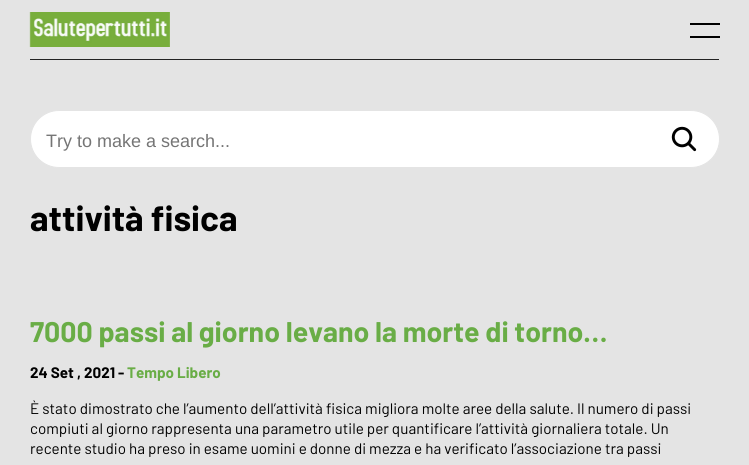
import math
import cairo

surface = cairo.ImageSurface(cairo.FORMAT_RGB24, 749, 465)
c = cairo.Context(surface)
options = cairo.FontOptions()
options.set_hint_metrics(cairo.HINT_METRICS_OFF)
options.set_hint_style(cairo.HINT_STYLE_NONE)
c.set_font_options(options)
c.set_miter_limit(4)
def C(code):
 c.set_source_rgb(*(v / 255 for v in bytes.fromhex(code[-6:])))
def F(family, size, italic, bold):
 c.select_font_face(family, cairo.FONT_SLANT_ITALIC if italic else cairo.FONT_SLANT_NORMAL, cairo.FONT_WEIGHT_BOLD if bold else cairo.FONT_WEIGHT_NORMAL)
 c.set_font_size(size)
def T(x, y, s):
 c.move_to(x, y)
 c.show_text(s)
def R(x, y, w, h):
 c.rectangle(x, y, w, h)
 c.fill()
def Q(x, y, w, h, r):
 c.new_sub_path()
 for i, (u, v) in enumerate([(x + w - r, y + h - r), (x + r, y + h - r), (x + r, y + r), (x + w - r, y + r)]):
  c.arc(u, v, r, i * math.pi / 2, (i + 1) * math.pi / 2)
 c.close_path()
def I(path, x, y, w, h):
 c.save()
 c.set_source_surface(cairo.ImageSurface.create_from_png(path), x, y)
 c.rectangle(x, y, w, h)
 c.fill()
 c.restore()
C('e4e4e4')
c.paint()
C('222222')
R(30,59,689,1)
I('1.png',29,12,141,35)
C('000000')
R(690,23,30,2)
R(690,36,30,2)
C('ffffff')
Q(30.5,110.5,689,57,28.5)
c.fill_preserve()
C('e4e4e4')
c.set_line_width(1)
c.stroke()
F('Liberation Sans',18,0,0)
C('757575')
T(46,147,'Try to make a search...')
I('2.png',671,126,26,26)
F('Barlow',35.25,0,1)
C('000000')
T(30,231,'attività fisica')
F('Barlow',28.45,0,1)
C('69ad46')
T(30,342,'7000 passi al giorno levano la morte di torno…')
F('Barlow',15.2,0,1)
C('000000')
T(30,378,'24 Set , 2021 -')
C('69ad46')
T(127,378,'Tempo Libero')
F('Barlow',15.2,0,0)
C('000000')
T(30,414,'È stato dimostrato che l’aumento dell’attività fisica migliora molte aree della salute. Il numero di passi')
T(30,434,'compiuti al giorno rappresenta una parametro utile per quantificare l’attività giornaliera totale. Un')
T(30,454,'recente studio ha preso in esame uomini e donne di mezza e ha verificato l’associazione tra passi')
surface.write_to_png('o.png')
